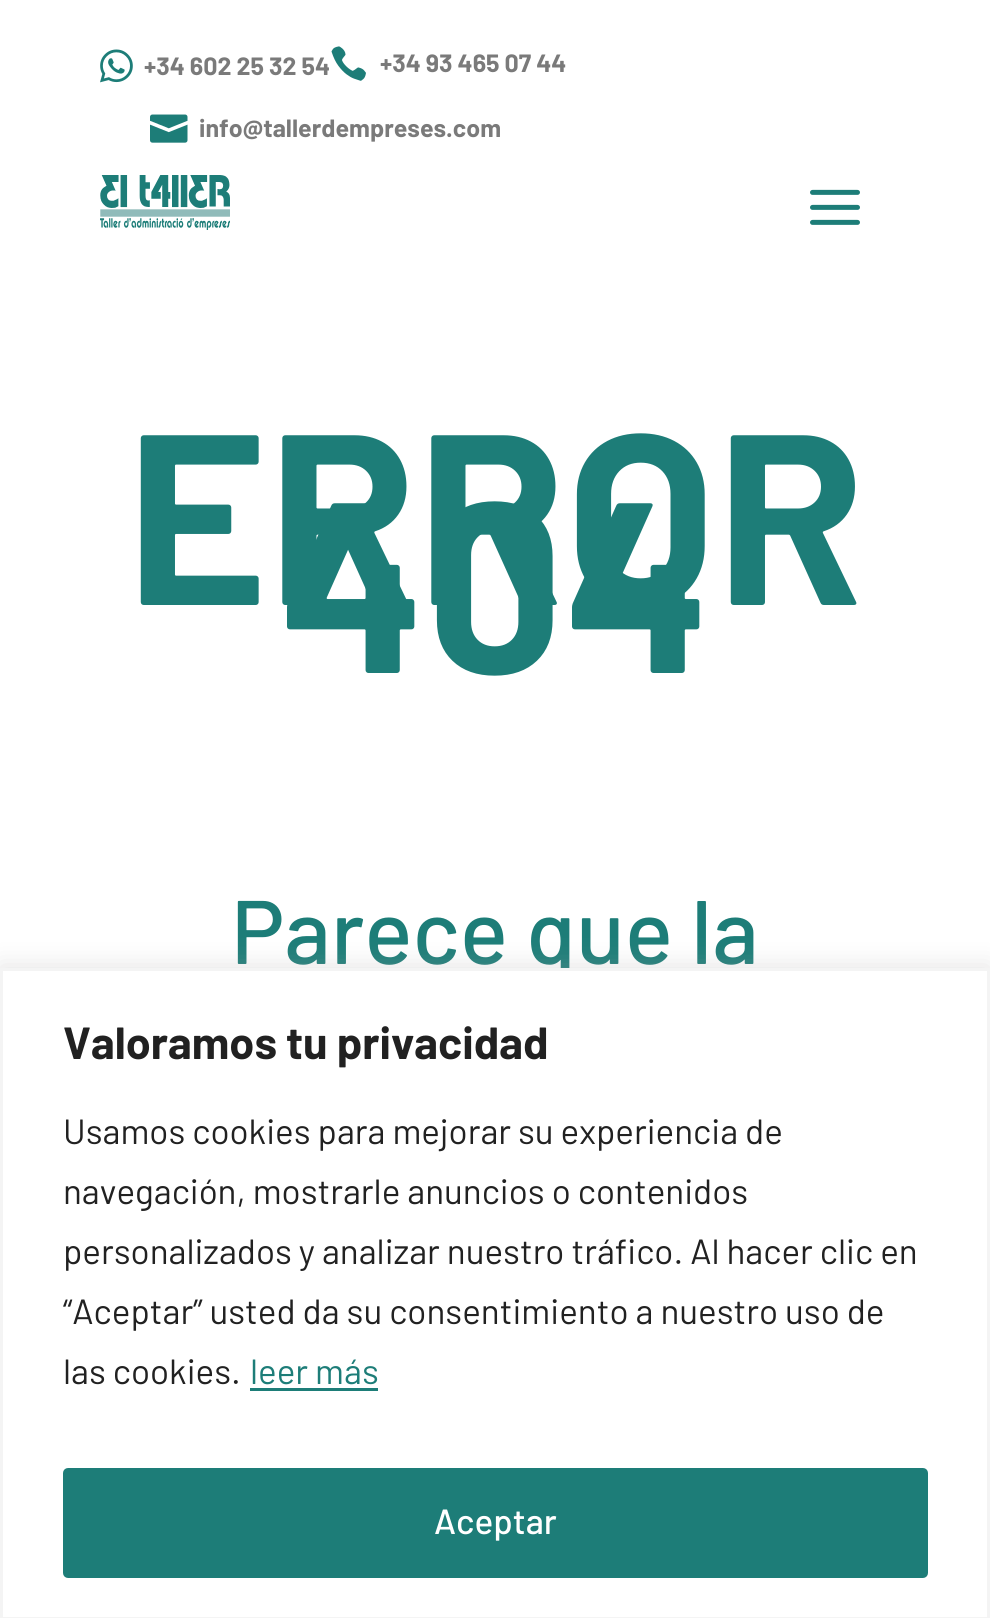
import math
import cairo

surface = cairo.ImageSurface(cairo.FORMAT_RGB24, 990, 1618)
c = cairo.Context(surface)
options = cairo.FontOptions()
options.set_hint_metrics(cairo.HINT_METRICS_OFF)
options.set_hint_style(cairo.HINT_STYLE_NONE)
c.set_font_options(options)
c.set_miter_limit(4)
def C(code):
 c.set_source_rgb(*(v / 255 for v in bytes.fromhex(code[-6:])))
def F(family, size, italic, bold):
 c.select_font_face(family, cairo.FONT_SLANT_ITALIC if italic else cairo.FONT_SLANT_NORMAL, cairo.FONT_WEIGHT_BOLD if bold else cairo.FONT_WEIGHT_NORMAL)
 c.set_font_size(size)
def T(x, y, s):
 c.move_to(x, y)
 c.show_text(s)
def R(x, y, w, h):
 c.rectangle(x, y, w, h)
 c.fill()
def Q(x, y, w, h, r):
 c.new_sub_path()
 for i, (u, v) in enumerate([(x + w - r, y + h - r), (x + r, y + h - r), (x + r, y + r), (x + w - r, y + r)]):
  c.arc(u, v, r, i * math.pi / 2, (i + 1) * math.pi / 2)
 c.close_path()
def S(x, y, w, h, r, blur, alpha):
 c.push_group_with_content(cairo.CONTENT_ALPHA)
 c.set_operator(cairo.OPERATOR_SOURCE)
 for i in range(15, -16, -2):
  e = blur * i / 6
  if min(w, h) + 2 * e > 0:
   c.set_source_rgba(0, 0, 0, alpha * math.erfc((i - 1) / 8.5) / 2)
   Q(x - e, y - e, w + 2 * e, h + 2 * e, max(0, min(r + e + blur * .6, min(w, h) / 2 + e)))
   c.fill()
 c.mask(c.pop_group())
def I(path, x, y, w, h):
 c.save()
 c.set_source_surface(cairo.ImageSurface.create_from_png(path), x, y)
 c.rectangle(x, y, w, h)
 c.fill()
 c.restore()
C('ffffff')
c.paint()
I('1.png',100,49,33,34)
F('Barlow',25,0,1)
C('7a7a7a')
T(144,75,'+34 602 25 32 54')
I('2.png',331,46,35,35)
T(380,72,'+34 93 465 07 44')
I('3.png',150,114,38,29)
T(199,137,'info@tallerdempreses.com')
I('4.png',100,175,130,55)
I('5.png',810,189,50,36)
F('Barlow',242.5,0,1)
C('1d7d78')
T(126,605,'ERROR')
T(279,673,'404')
F('Barlow Medium',90,0,0)
T(231,964,'Parece que la')
C('acabab')
S(0,965,990,653,0,12.5,.3)
C('ffffff')
c.rectangle(1.5,969.5,987,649)
c.fill_preserve()
C('f4f4f4')
c.set_line_width(3)
c.stroke()
F('Barlow',45,0,1)
C('212121')
T(63,1059,'Valoramos tu privacidad')
F('Barlow',35,0,0)
T(63,1144,'Usamos cookies para mejorar su experiencia de')
T(63,1204,'navegación, mostrarle anuncios o contenidos')
T(63,1264,'personalizados y analizar nuestro tráfico. Al hacer clic en')
T(63,1324,'“Aceptar” usted da su consentimiento a nuestro uso de')
T(63,1384,'las cookies.')
C('1d7d78')
T(250,1384,'leer más')
R(250,1388,128,3)
Q(65.5,1470.5,860,105,2.5)
c.fill_preserve()
c.set_line_width(5)
c.stroke()
F('Barlow Medium',35,0,0)
C('ffffff')
T(434,1534,'Aceptar')
surface.write_to_png('o.png')
